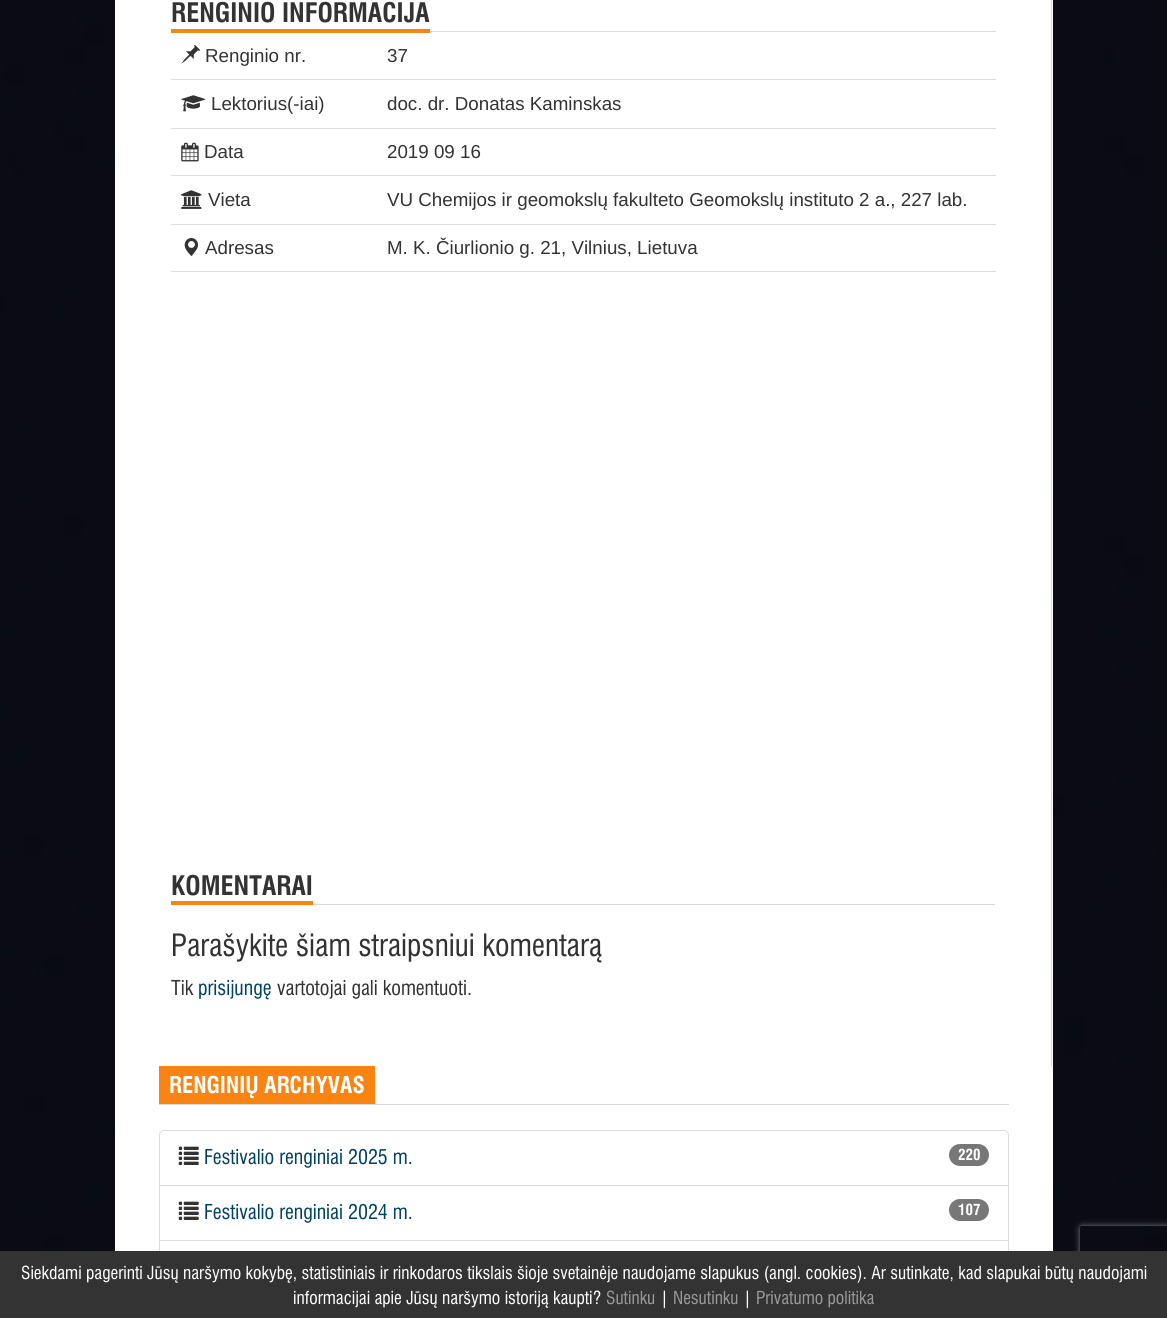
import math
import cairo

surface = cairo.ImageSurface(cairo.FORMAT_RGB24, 1167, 1318)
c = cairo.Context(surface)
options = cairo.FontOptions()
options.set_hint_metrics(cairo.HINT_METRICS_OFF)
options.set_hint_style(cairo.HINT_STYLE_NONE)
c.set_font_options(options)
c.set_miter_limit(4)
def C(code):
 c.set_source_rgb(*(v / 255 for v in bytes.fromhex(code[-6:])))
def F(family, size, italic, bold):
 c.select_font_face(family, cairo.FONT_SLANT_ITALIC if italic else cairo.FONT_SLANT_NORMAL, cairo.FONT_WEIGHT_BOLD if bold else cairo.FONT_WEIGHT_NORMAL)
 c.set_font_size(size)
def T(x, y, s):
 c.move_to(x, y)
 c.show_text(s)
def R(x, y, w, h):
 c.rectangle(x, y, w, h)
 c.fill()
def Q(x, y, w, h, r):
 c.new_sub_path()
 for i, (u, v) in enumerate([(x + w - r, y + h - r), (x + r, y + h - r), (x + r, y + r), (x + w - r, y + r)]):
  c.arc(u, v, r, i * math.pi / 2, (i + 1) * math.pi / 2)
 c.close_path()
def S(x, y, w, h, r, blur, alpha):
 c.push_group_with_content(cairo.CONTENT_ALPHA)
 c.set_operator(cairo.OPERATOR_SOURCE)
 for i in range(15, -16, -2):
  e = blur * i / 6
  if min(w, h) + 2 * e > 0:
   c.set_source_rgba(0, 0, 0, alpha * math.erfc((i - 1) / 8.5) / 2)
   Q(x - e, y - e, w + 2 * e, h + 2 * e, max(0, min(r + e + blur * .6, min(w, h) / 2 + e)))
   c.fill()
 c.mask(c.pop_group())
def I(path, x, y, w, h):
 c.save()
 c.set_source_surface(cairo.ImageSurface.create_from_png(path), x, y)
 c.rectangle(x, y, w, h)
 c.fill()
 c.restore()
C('ffffff')
c.paint()
I('1.png',0,0,1167,1251)
C('ffffff')
R(115,0,938,1251)
C('d9d9d9')
R(1051,0,1,1066)
F('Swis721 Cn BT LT',26.25,0,1)
C('333333')
T(171,22,'RENGINIO INFORMACIJA')
C('fa8412')
R(171,29,259,4)
I('2.png',181,45,19,19)
F('Liberation Sans',18.75,0,0)
C('333333')
T(205,62,'Renginio nr.')
C('dddddd')
R(430,31,566,1)
C('333333')
T(387,62,'37')
I('3.png',181,95,25,17)
T(211,110,'Lektorius(-iai)')
C('dddddd')
R(171,79,825,1)
C('333333')
T(387,110,'doc. dr. Donatas Kaminskas')
I('4.png',181,142,18,20)
T(204,158,'Data')
C('dddddd')
R(171,128,825,1)
C('333333')
T(387,158,'2019 09 16')
I('5.png',181,190,21,19)
T(208,206,'Vieta')
C('dddddd')
R(171,175,825,1)
C('333333')
T(387,206,'VU Chemijos ir geomokslų fakulteto Geomokslų instituto 2 a., 227 lab.')
I('6.png',184,238,15,19)
T(205,254,'Adresas')
C('dddddd')
R(171,224,825,1)
C('333333')
T(387,254,'M. K. Čiurlionio g. 21, Vilnius, Lietuva')
C('dddddd')
R(171,271,825,1)
F('Swis721 Cn BT LT',26.25,0,1)
C('333333')
T(171,895,'KOMENTARAI')
C('fa8412')
R(171,901,142,4)
C('d9d9d9')
R(313,904,682,1)
F('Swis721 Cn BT',30,0,0)
C('333333')
T(171,956,'Parašykite šiam straipsniui komentarą')
F('Swis721 Cn BT',20,0,0)
T(171,995,'Tik')
C('004261')
T(198,995,'prisijungę')
C('333333')
T(277,995,'vartotojai gali komentuoti.')
C('fa8412')
R(159,1066,216,38)
F('Swis721 Cn BT LT',22.5,0,1)
C('ffffff')
T(169,1093,'RENGINIŲ ARCHYVAS')
C('d9d9d9')
R(159,1104,850,1)
c.new_path()
c.move_to(164,1130.5)
c.line_to(1004,1130.5)
c.curve_to(1006.5,1130.5,1008.5,1132.5,1008.5,1135)
c.line_to(1008.5,1185.5)
c.line_to(159.5,1185.5)
c.line_to(159.5,1135)
c.curve_to(159.5,1132.5,161.5,1130.5,164,1130.5)
c.close_path()
C('dddddd')
c.set_line_width(1)
c.stroke()
I('7.png',178,1146,21,19)
F('Swis721 Cn BT',20,0,0)
C('004261')
T(204,1164,'Festivalio renginiai 2025 m.')
C('777777')
Q(949,1144,40,22,11)
c.fill()
F('Swis721 Cn BT LT',15,0,1)
C('ffffff')
T(958,1160,'220')
c.rectangle(159.5,1185.5,849,55)
C('dddddd')
c.stroke()
I('7.png',178,1201,21,19)
F('Swis721 Cn BT',20,0,0)
C('004261')
T(204,1219,'Festivalio renginiai 2024 m.')
C('777777')
Q(949,1199,40,22,11)
c.fill()
F('Swis721 Cn BT LT',15,0,1)
C('ffffff')
T(958,1215,'107')
c.rectangle(159.5,1240.5,849,55)
C('dddddd')
c.stroke()
c.save()
c.set_fill_rule(cairo.FILL_RULE_EVEN_ODD)
c.new_path()
c.move_to(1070,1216)
c.line_to(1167,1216)
c.line_to(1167,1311)
c.line_to(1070,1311)
c.close_path()
c.move_to(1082.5,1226)
c.line_to(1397.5,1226)
c.curve_to(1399,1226,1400,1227,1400,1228.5)
c.line_to(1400,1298.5)
c.curve_to(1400,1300,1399,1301,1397.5,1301)
c.line_to(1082.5,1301)
c.curve_to(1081,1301,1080,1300,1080,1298.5)
c.line_to(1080,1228.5)
c.curve_to(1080,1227,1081,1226,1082.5,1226)
c.close_path()
c.clip()
C('808080')
S(1080,1226,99,75,2.5,3,1)
c.restore()
C('333333')
R(0,1251,1167,67)
F('Swis721 Cn BT',17.5,0,0)
C('ffffff')
T(21,1279,'Siekdami pagerinti Jūsų naršymo kokybę, statistiniais ir rinkodaros tikslais šioje svetainėje naudojame slapukus (angl. cookies). Ar sutinkate, kad slapukai būtų naudojami')
T(293,1304,'informacijai apie Jūsų naršymo istoriją kaupti?')
C('999999')
T(606,1304,'Sutinku')
C('ffffff')
T(660,1304,'|')
C('999999')
T(673,1304,'Nesutinku')
C('ffffff')
T(743,1304,'|')
C('999999')
T(756,1304,'Privatumo politika')
surface.write_to_png('o.png')
